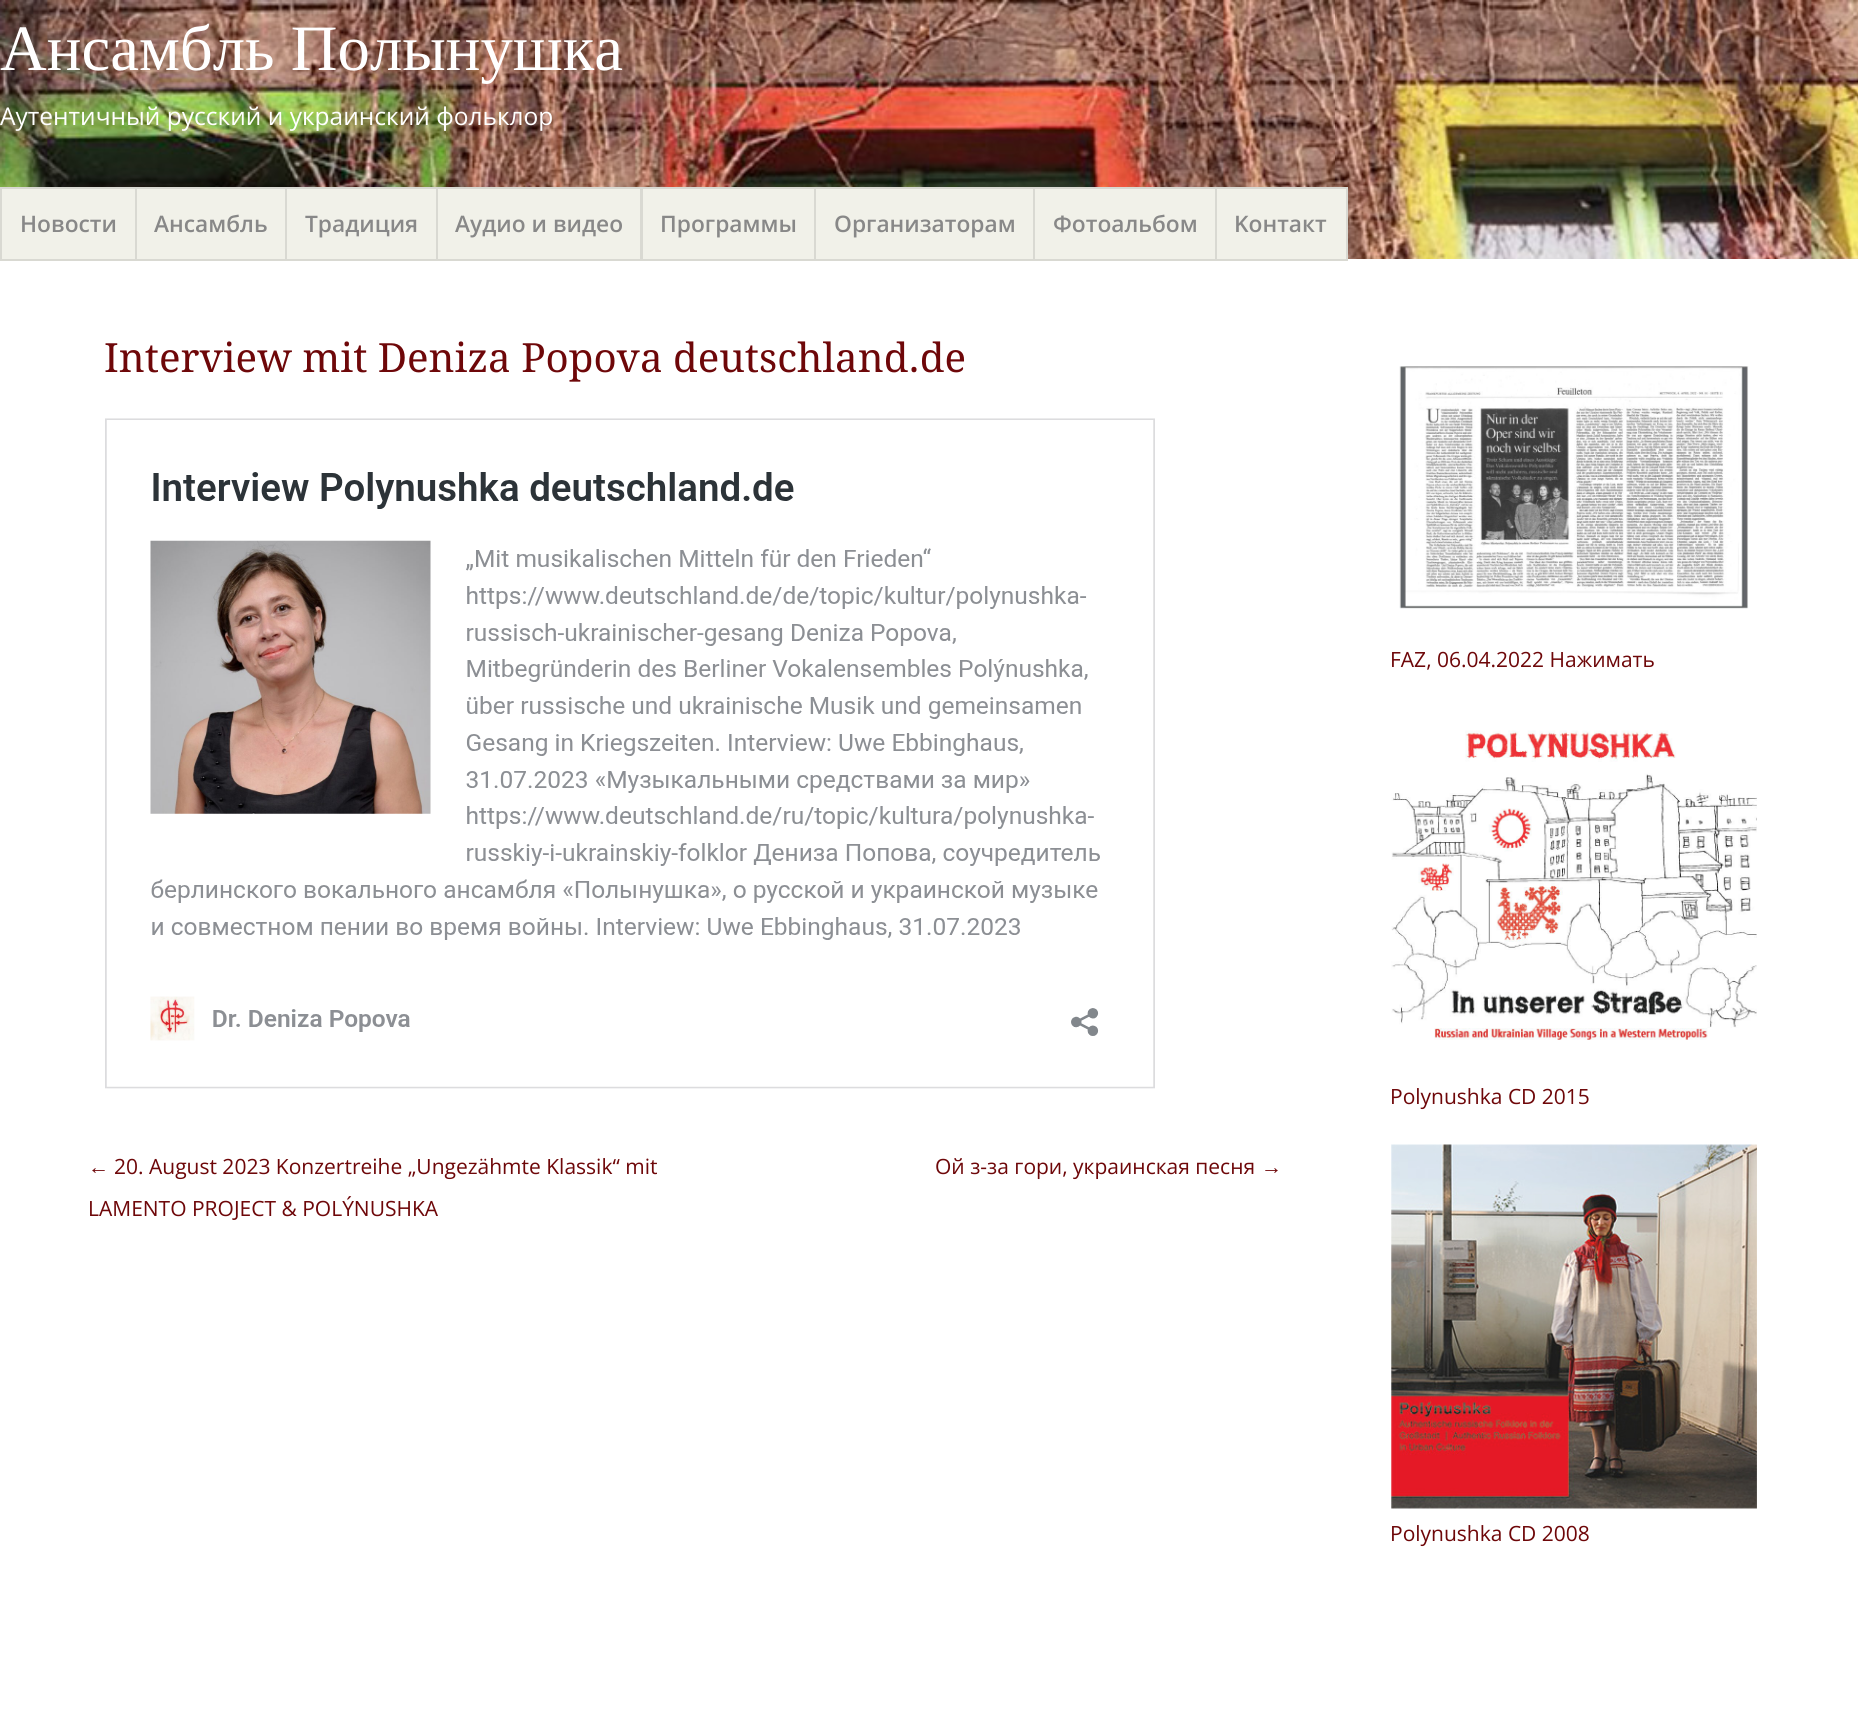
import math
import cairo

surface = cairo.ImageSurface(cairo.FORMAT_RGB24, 1858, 1713)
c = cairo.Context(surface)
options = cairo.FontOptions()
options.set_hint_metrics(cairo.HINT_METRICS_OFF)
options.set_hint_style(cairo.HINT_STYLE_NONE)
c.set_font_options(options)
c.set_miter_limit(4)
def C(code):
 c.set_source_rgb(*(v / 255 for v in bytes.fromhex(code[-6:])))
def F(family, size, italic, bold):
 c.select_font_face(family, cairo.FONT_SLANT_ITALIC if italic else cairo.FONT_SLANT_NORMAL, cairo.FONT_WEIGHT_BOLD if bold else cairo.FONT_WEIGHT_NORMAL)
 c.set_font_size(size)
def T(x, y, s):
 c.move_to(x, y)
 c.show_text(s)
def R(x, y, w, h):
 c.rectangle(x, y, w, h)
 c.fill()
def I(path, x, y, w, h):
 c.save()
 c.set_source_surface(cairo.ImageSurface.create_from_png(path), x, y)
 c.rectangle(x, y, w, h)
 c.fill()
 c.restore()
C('ffffff')
c.paint()
I('1.png',0,0,1858,259)
F('Liberation Serif',64.75,0,0)
C('ffffff')
T(0,70,'Aнсамбль Полынушка')
F('Open Sans',24.5,0,0)
T(0,125,'Аутентичный русский и украинский фольклор')
C('f1f1e9')
c.rectangle(1,188,135,72)
c.fill_preserve()
C('d9d9d2')
c.stroke()
F('Open Sans SemiBold',22.75,0,0)
C('888888')
T(20,232,'Новости')
C('f1f1e9')
c.rectangle(136,188,150,72)
c.fill_preserve()
C('d9d9d2')
c.stroke()
C('888888')
T(154,232,'Aнсамбль')
C('f1f1e9')
c.rectangle(286,188,151,72)
c.fill_preserve()
C('d9d9d2')
c.stroke()
C('888888')
T(305,232,'Традиция')
C('f1f1e9')
c.rectangle(437,188,204,72)
c.fill_preserve()
C('d9d9d2')
c.stroke()
C('888888')
T(455,232,'Аудио и видео')
C('f1f1e9')
R(643,189,171,70)
c.rectangle(642,188,174,72)
C('d9d9d2')
c.stroke()
C('888888')
T(660,232,'Программы')
C('f1f1e9')
R(816,189,217,70)
c.rectangle(815,188,220,72)
C('d9d9d2')
c.stroke()
C('888888')
T(834,232,'Организаторам')
C('f1f1e9')
R(1035,189,180,70)
c.rectangle(1034,188,183,72)
C('d9d9d2')
c.stroke()
C('888888')
T(1053,232,'Фотоальбом')
C('f1f1e9')
c.rectangle(1216,188,131,72)
c.fill_preserve()
C('d9d9d2')
c.stroke()
C('888888')
T(1234,232,'Kонтакт')
F('Droid Serif',40.25,0,0)
C('6e0709')
T(104,372,'Interview mit Deniza Popova deutschland.de')
I('2.png',105,418,1050,671)
F('Liberation Sans',21,0,0)
T(88,1174,'←')
F('Open Sans',21,0,0)
T(114,1174,'20. August 2023 Konzertreihe „Ungezähmte Klassik“ mit')
T(88,1216,'LAMENTO PROJECT & POLÝNUSHKA')
T(935,1174,'Ой з-за гори, украинская песня')
F('Liberation Sans',21,0,0)
T(1261,1174,'→')
I('3.png',1399,366,350,243)
F('Open Sans',21,0,0)
T(1390,667,'FAZ, 06.04.2022 Нажимать')
I('4.png',1391,730,366,310)
T(1390,1104,'Polynushka CD 2015')
I('5.png',1391,1144,366,365)
T(1390,1541,'Polynushka CD 2008')
surface.write_to_png('o.png')
